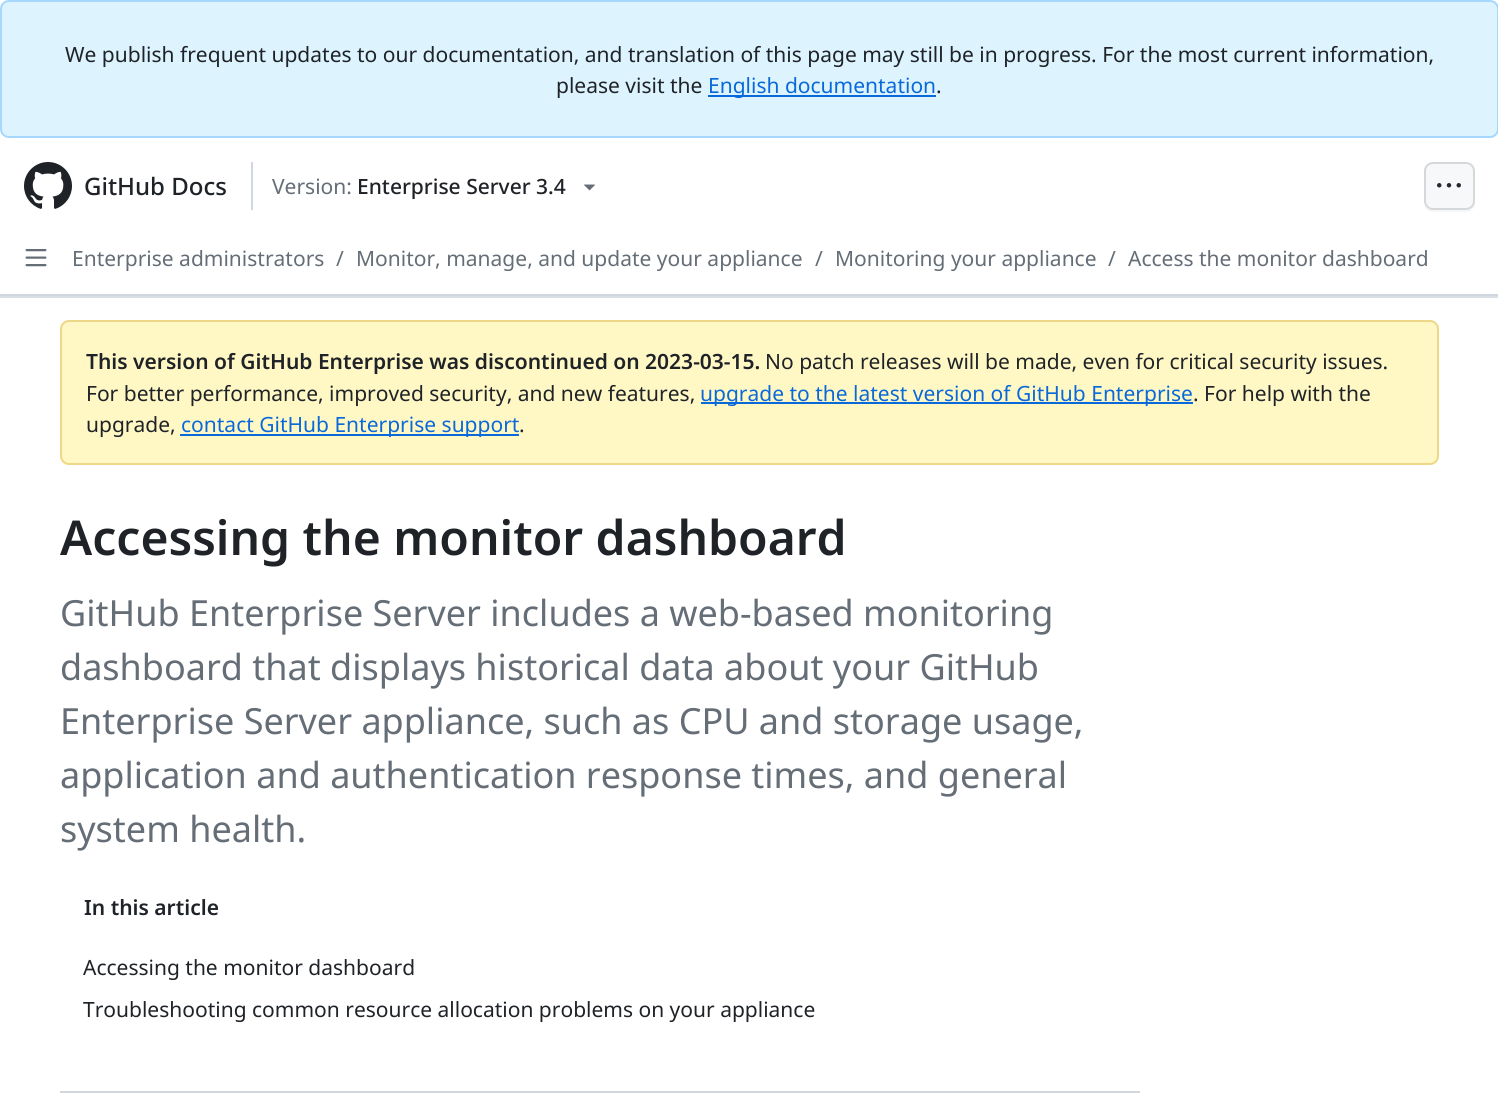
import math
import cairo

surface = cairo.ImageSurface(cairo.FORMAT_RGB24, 1498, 1117)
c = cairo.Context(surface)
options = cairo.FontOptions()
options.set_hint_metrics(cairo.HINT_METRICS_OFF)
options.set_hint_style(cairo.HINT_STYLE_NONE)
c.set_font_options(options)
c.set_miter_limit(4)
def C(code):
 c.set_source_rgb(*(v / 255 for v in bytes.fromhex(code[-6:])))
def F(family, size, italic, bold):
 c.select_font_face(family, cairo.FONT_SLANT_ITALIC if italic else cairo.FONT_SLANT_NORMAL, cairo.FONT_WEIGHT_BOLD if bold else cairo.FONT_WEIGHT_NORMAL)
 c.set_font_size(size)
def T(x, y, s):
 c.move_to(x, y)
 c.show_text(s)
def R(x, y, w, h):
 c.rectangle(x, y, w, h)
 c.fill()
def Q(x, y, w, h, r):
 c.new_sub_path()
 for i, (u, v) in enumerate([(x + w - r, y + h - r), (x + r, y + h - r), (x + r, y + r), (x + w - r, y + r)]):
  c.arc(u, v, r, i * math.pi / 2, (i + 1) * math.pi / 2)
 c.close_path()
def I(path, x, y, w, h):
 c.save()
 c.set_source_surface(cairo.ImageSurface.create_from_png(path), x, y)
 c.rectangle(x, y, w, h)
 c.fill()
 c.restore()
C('ffffff')
c.paint()
C('d8dee4')
R(0,296,1498,2)
C('ddf4ff')
Q(0,0,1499,138,9)
c.fill()
Q(1,1,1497,136,8)
c.set_source_rgba(0.329,0.682,1,0.4)
c.stroke()
F('Noto Sans',21,0,0)
C('1f2328')
T(65,62,'We publish frequent updates to our documentation, and translation of this page may still be in progress. For the most current information,')
T(556,93,'please visit the')
C('0969da')
R(708,95,228,2)
T(708,93,'English documentation')
C('1f2328')
T(936,93,'.')
C('d0d7de')
R(0,294,1498,2)
I('1.png',24,162,48,47)
F('Noto Sans Medium',24,0,0)
C('1f2328')
T(84,195,'GitHub Docs')
C('d0d7de')
R(251,162,2,48)
F('Noto Sans',21,0,0)
C('656d76')
T(272,194,'Version:')
F('Noto Sans Medium',21,0,0)
C('1f2328')
T(357,194,'Enterprise Server 3.4')
I('2.png',584,184,11,7)
C('f6f6f6')
c.new_path()
c.move_to(1424,204)
c.curve_to(1425,209,1428,212,1433,212)
c.line_to(1466,212)
c.curve_to(1471,212,1475,208,1475,203)
c.line_to(1475,173)
c.line_to(1474,170)
c.line_to(1474,203)
c.line_to(1473,206)
c.curve_to(1470,211,1465,210,1460,210)
c.line_to(1438,210)
c.curve_to(1432,210,1426,210,1424,204)
c.close_path()
c.fill()
C('f6f8fa')
Q(1424,162,51,48,9)
c.fill()
Q(1425,163,49,46,8)
c.set_source_rgba(0.122,0.137,0.157,0.15)
c.stroke()
I('3.png',1437,183,24,5)
I('4.png',25,249,22,18)
F('Noto Sans',21,0,0)
C('656d76')
T(72,266,'Enterprise administrators')
T(336,266,'/')
T(356,266,'Monitor, manage, and update your appliance')
T(815,266,'/')
T(835,266,'Monitoring your appliance')
T(1108,266,'/')
T(1128,266,'Access the monitor dashboard')
C('fff8c5')
Q(60,320,1379,145,9)
c.fill()
Q(61,321,1377,143,8)
c.set_source_rgba(0.831,0.655,0.173,0.4)
c.stroke()
F('Noto Sans SemiBold',21,0,0)
C('1f2328')
T(86,369,'This version of GitHub Enterprise was discontinued on 2023-03-15.')
F('Noto Sans',21,0,0)
T(765,369,'No patch releases will be made, even for critical security issues.')
T(86,401,'For better performance, improved security, and new features,')
C('0969da')
R(701,402,492,2)
T(700,401,'upgrade to the latest version of GitHub Enterprise')
C('1f2328')
T(1193,401,'. For help with the')
T(86,432,'upgrade,')
C('0969da')
R(180,434,339,2)
T(181,432,'contact GitHub Enterprise support')
C('1f2328')
T(519,432,'.')
F('Noto Sans SemiBold',48,0,0)
T(60,555,'Accessing the monitor dashboard')
F('Noto Sans',36,0,0)
C('656d76')
T(60,626,'GitHub Enterprise Server includes a web-based monitoring')
T(60,680,'dashboard that displays historical data about your GitHub')
T(60,734,'Enterprise Server appliance, such as CPU and storage usage,')
T(60,788,'application and authentication response times, and general')
T(60,842,'system health.')
C('d0d7de')
R(60,1091,1080,2)
F('Noto Sans SemiBold',21,0,0)
C('1f2328')
T(84,915,'In this article')
F('Noto Sans',21,0,0)
T(83,975,'Accessing the monitor dashboard')
T(83,1017,'Troubleshooting common resource allocation problems on your appliance')
surface.write_to_png('o.png')
